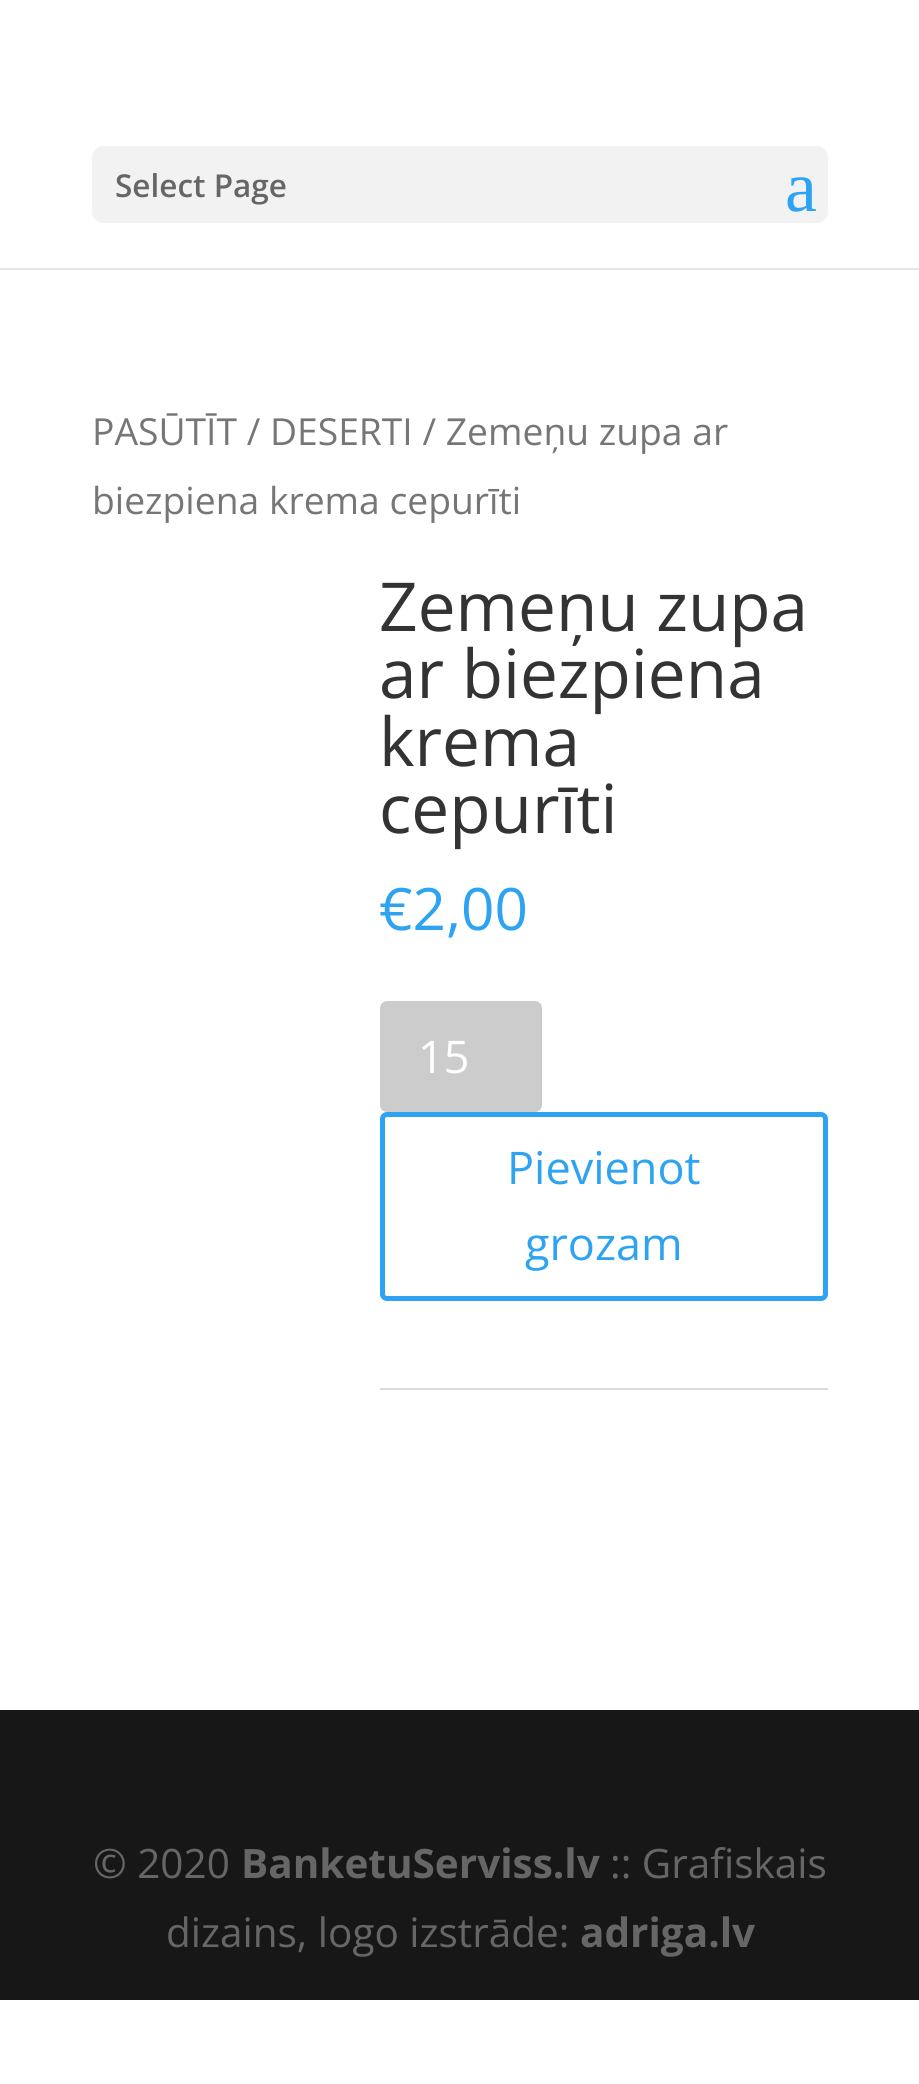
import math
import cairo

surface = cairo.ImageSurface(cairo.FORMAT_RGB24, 919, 2084)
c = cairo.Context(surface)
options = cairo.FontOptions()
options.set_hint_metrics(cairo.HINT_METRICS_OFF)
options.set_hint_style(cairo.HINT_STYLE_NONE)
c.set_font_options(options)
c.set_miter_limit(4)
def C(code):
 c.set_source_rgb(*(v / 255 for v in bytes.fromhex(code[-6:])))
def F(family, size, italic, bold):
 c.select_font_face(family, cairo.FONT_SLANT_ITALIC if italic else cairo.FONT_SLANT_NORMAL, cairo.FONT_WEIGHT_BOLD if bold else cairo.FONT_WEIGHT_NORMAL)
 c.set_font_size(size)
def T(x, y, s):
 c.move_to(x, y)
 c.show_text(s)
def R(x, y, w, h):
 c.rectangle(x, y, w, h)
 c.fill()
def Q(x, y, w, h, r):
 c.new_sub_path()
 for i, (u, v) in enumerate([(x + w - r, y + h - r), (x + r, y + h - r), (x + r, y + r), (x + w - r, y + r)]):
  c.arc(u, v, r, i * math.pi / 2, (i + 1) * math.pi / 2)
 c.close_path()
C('ffffff')
c.paint()
C('e6e6e6')
R(0,268,919,2)
C('f2f2f2')
Q(92,146,736,77,11)
c.fill()
F('Open Sans SemiBold',31.5,0,0)
C('666666')
T(115,197,'Select Page')
F('Liberation Serif',72,0,0)
C('2ea3f2')
T(785,211,'a')
F('Open Sans',37.25,0,0)
C('767676')
T(92,445,'PASŪTĪT / DESERTI / Zemeņu zupa ar')
T(92,514,'biezpiena krema cepurīti')
F('Open Sans',67.5,0,0)
C('333333')
T(379,631,'Zemeņu zupa')
T(379,698,'ar biezpiena')
T(379,766,'krema')
T(379,833,'cepurīti')
F('Open Sans',58.5,0,0)
C('2ea3f2')
T(379,930,'€2,00')
C('cccccc')
Q(380,1001,162,111,7)
c.fill()
F('Open Sans',45,0,0)
C('ffffff')
T(418,1073,'15')
Q(382.5,1114.5,443,184,4.5)
C('2ea3f2')
c.set_line_width(5)
c.stroke()
T(507,1184,'Pievienot')
T(525,1260,'grozam')
C('dadada')
R(380,1388,448,2)
C('171717')
R(0,1710,919,290)
F('Open Sans',40.5,0,0)
C('666666')
T(93,1878,'© 2020')
F('Open Sans',40.5,0,1)
T(241,1878,'BanketuServiss.lv')
F('Open Sans',40.5,0,0)
T(610,1878,':: Grafiskais')
T(166,1947,'dizains, logo izstrāde:')
F('Open Sans',40.5,0,1)
T(580,1947,'adriga.lv')
surface.write_to_png('o.png')
